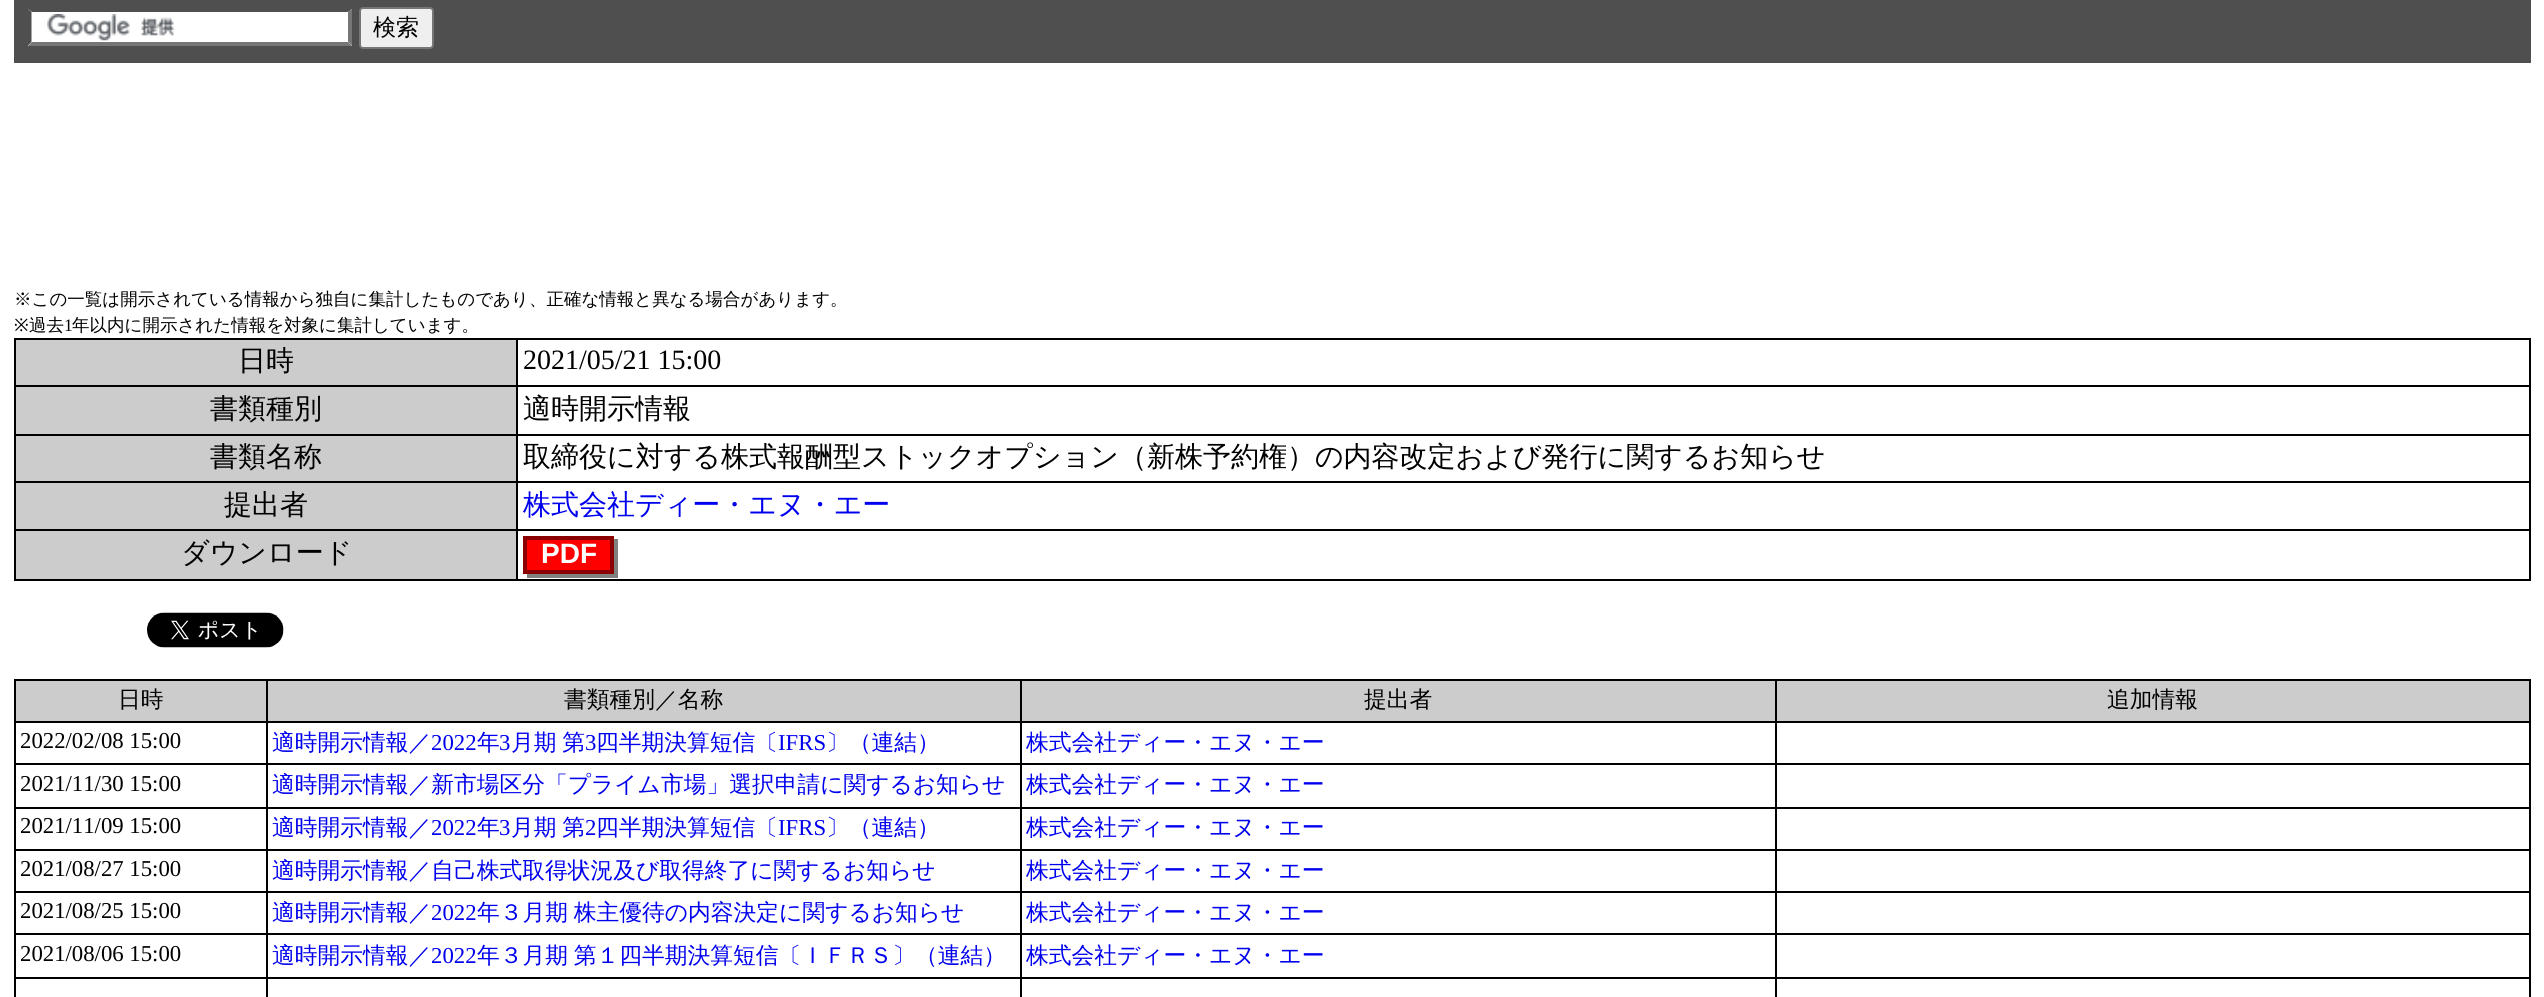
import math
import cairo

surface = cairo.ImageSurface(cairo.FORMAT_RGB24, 2544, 997)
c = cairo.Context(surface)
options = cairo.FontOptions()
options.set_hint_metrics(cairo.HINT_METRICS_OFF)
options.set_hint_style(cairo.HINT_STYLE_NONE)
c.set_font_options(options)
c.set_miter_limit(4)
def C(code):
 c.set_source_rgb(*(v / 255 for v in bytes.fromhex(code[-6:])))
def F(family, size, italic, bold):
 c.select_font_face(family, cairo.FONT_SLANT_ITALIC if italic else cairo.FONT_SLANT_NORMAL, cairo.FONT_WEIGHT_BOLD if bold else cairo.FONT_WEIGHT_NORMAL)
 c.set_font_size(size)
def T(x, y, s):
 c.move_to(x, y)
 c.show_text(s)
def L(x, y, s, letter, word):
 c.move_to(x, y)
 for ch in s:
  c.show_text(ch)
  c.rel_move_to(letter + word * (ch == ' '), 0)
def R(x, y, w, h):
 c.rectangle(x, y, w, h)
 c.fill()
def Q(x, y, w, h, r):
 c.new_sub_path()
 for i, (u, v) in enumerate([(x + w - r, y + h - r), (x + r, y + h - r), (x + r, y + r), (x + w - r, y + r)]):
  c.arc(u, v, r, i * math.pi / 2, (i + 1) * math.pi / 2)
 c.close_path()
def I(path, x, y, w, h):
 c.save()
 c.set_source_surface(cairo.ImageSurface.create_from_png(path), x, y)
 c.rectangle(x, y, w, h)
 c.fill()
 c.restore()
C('ffffff')
c.paint()
C('4f4f4f')
R(14,0,2517,63)
C('ffffff')
R(28,9,324,37)
I('1.png',47,14,128,27)
C('4f4f4f')
c.new_path()
c.move_to(28,9)
c.line_to(352,9)
c.line_to(348,12)
c.line_to(32,12)
c.close_path()
c.fill()
C('767676')
c.new_path()
c.move_to(352,9)
c.line_to(352,45.5)
c.line_to(348,42)
c.line_to(348,12)
c.close_path()
c.fill()
c.new_path()
c.move_to(352,46)
c.line_to(28,46)
c.line_to(32,42)
c.line_to(348,42)
c.close_path()
c.fill()
C('4f4f4f')
c.new_path()
c.move_to(28,45.5)
c.line_to(28,9)
c.line_to(31.5,12)
c.line_to(31.5,42)
c.close_path()
c.fill()
C('efefef')
Q(360,8,73,40,3)
c.fill_preserve()
C('767676')
c.stroke()
F('WenQuanYi Zen Hei Medium',23,0,0)
C('000000')
T(373,35,'検索')
F('WenQuanYi Zen Hei Medium',17.5,0,0)
T(14,305,'※この一覧は開示されている情報から独自に集計したものであり、正確な情報と異なる場合があります。')
F('Noto Sans',17.5,0,0)
T(14,331,'※')
F('WenQuanYi Zen Hei Medium',17.5,0,0)
T(29,331,'過去')
F('Liberation Serif',17.5,0,0)
T(64,331,'1')
F('WenQuanYi Zen Hei Medium',17.5,0,0)
T(72,331,'年以内に開示された情報を対象に集計しています。')
C('cccccc')
R(16,340,500,45)
C('000000')
R(516,338,2015,2)
R(516,385,2015,2)
R(516,434,2015,2)
R(516,481,2015,2)
R(516,529,2015,2)
R(2529,529,2,52)
R(516,579,2015,2)
R(516,529,2,52)
R(14,529,504,2)
R(516,481,2,49)
R(14,481,504,2)
R(516,434,2,49)
R(14,434,504,2)
R(516,385,2,51)
R(14,385,504,2)
R(516,338,2,49)
R(14,338,504,2)
R(14,579,504,2)
R(14,529,2,52)
R(14,481,2,49)
R(14,434,2,49)
R(14,385,2,51)
R(14,338,2,49)
F('WenQuanYi Zen Hei Medium',28,0,0)
T(238,370,'日時')
R(2529,481,2,49)
R(2529,434,2,49)
R(2529,385,2,51)
R(2529,338,2,49)
F('Liberation Serif',28,0,0)
T(523,369,'2021/05/21 15:00')
C('cccccc')
R(16,387,500,47)
F('WenQuanYi Zen Hei Medium',28,0,0)
C('000000')
T(210,418,'書類種別')
T(523,418,'適時開示情報')
C('cccccc')
R(16,436,500,45)
C('000000')
T(210,466,'書類名称')
T(523,466,'取締役に対する株式報酬型ストックオプション（新株予約権）の内容改定および発行に関するお知らせ')
C('cccccc')
R(16,483,500,46)
C('000000')
T(224,514,'提出者')
C('0000ee')
T(523,514,'株式会社ディー・エヌ・エー')
C('cccccc')
R(16,531,500,48)
C('000000')
T(181,562,'ダウンロード')
C('808080')
c.new_path()
c.move_to(527,574)
c.line_to(527,578)
c.line_to(618,578)
c.line_to(618,539)
c.line_to(614,539)
c.line_to(614,574)
c.close_path()
c.fill()
C('ff0000')
c.rectangle(525,538,87,34)
c.fill_preserve()
C('8b0000')
c.set_line_width(4)
c.stroke()
F('Liberation Sans',28,0,1)
C('ffffff')
T(541,563,'PDF')
I('2.png',147,612,137,36)
C('cccccc')
R(16,681,250,40)
C('000000')
R(1775,679,756,2)
R(1775,721,756,2)
R(1775,763,756,2)
R(1775,807,756,2)
R(1775,849,756,2)
R(1775,891,756,2)
R(1775,933,756,2)
R(1775,977,756,2)
R(1775,977,2,20)
R(1020,977,756,2)
R(1775,933,2,45)
R(1020,933,756,2)
R(1775,891,2,44)
R(1020,891,756,2)
R(1775,849,2,44)
R(1020,849,756,2)
R(1775,807,2,44)
R(1020,807,756,2)
R(1775,763,2,46)
R(1020,763,756,2)
R(1775,721,2,44)
R(1020,721,756,2)
R(1775,679,2,44)
R(1020,679,756,2)
R(1020,977,2,20)
R(266,977,756,2)
R(1020,933,2,45)
R(266,933,756,2)
R(1020,891,2,44)
R(266,891,756,2)
R(1020,849,2,44)
R(266,849,756,2)
R(1020,807,2,44)
R(266,807,756,2)
R(1020,763,2,46)
R(266,763,756,2)
R(1020,721,2,44)
R(266,721,756,2)
R(1020,679,2,44)
R(266,679,756,2)
R(266,977,2,20)
R(14,977,254,2)
R(266,933,2,45)
R(14,933,254,2)
R(266,891,2,44)
R(14,891,254,2)
R(266,849,2,44)
R(14,849,254,2)
R(266,807,2,44)
R(14,807,254,2)
R(266,763,2,46)
R(14,763,254,2)
R(266,721,2,44)
R(14,721,254,2)
R(266,679,2,44)
R(14,679,254,2)
R(14,977,2,20)
R(14,933,2,45)
R(14,891,2,44)
R(14,849,2,44)
R(14,807,2,44)
R(14,763,2,46)
R(14,721,2,44)
R(14,679,2,44)
F('WenQuanYi Zen Hei Medium',22.75,0,0)
T(118,707,'日時')
C('cccccc')
R(268,681,752,40)
C('000000')
T(564,707,'書類種別／名称')
C('cccccc')
R(1022,681,753,40)
C('000000')
T(1364,707,'提出者')
C('cccccc')
R(1777,681,752,40)
C('000000')
R(2529,977,2,20)
R(2529,933,2,45)
R(2529,891,2,44)
R(2529,849,2,44)
R(2529,807,2,44)
R(2529,763,2,46)
R(2529,721,2,44)
R(2529,679,2,44)
T(2107,707,'追加情報')
F('Liberation Serif',22.75,0,0)
T(20,748,'2022/02/08 15:00')
F('WenQuanYi Zen Hei Medium',22.75,0,0)
C('0000ee')
T(272,750,'適時開示情報／')
F('Liberation Serif',22.75,0,0)
T(431,750,'2022')
F('WenQuanYi Zen Hei Medium',22.75,0,0)
T(477,750,'年')
F('Liberation Serif',22.75,0,0)
T(499,750,'3')
F('WenQuanYi Zen Hei Medium',22.75,0,0)
L(511,750,'月期 第',0,-1)
F('Liberation Serif',22.75,0,0)
T(585,750,'3')
F('WenQuanYi Zen Hei Medium',22.75,0,0)
T(596,750,'四半期決算短信〔')
F('Liberation Serif',22.75,0,0)
T(778,750,'IFRS')
F('WenQuanYi Zen Hei Medium',22.75,0,0)
T(826,750,'〕（連結）')
T(1026,750,'株式会社ディー・エヌ・エー')
F('Liberation Serif',22.75,0,0)
C('000000')
T(20,791,'2021/11/30 15:00')
F('WenQuanYi Zen Hei Medium',22.75,0,0)
C('0000ee')
T(272,792,'適時開示情報／新市場区分「プライム市場」選択申請に関するお知らせ')
T(1026,792,'株式会社ディー・エヌ・エー')
F('Liberation Serif',22.75,0,0)
C('000000')
T(20,833,'2021/11/09 15:00')
F('WenQuanYi Zen Hei Medium',22.75,0,0)
C('0000ee')
T(272,835,'適時開示情報／')
F('Liberation Serif',22.75,0,0)
T(431,835,'2022')
F('WenQuanYi Zen Hei Medium',22.75,0,0)
T(477,835,'年')
F('Liberation Serif',22.75,0,0)
T(499,835,'3')
F('WenQuanYi Zen Hei Medium',22.75,0,0)
L(511,835,'月期 第',0,-1)
F('Liberation Serif',22.75,0,0)
T(585,835,'2')
F('WenQuanYi Zen Hei Medium',22.75,0,0)
T(596,835,'四半期決算短信〔')
F('Liberation Serif',22.75,0,0)
T(778,835,'IFRS')
F('WenQuanYi Zen Hei Medium',22.75,0,0)
T(826,835,'〕（連結）')
T(1026,835,'株式会社ディー・エヌ・エー')
F('Liberation Serif',22.75,0,0)
C('000000')
T(20,876,'2021/08/27 15:00')
F('WenQuanYi Zen Hei Medium',22.75,0,0)
C('0000ee')
T(272,878,'適時開示情報／自己株式取得状況及び取得終了に関するお知らせ')
T(1026,878,'株式会社ディー・エヌ・エー')
F('Liberation Serif',22.75,0,0)
C('000000')
T(20,918,'2021/08/25 15:00')
F('WenQuanYi Zen Hei Medium',22.75,0,0)
C('0000ee')
T(272,920,'適時開示情報／')
F('Liberation Serif',22.75,0,0)
T(431,920,'2022')
F('WenQuanYi Zen Hei Medium',22.75,0,0)
L(477,920,'年３月期 株主優待の内容決定に関するお知らせ',0,-1)
T(1026,920,'株式会社ディー・エヌ・エー')
F('Liberation Serif',22.75,0,0)
C('000000')
T(20,961,'2021/08/06 15:00')
F('WenQuanYi Zen Hei Medium',22.75,0,0)
C('0000ee')
T(272,963,'適時開示情報／')
F('Liberation Serif',22.75,0,0)
T(431,963,'2022')
F('WenQuanYi Zen Hei Medium',22.75,0,0)
L(477,963,'年３月期 第１四半期決算短信〔ＩＦＲＳ〕（連結）',0,-1)
T(1026,963,'株式会社ディー・エヌ・エー')
surface.write_to_png('o.png')
